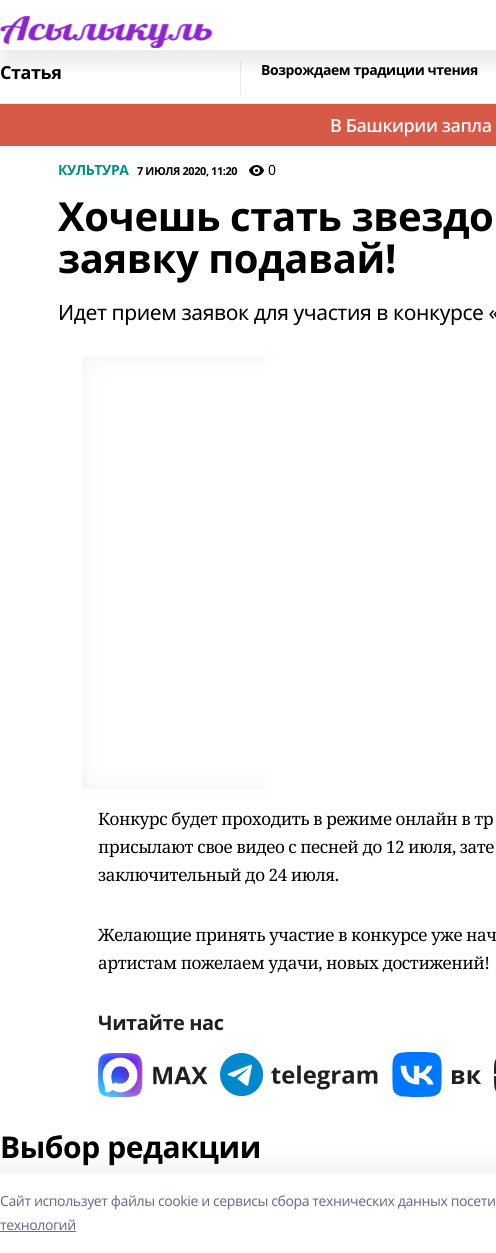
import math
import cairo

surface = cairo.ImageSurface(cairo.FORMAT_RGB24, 496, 1253)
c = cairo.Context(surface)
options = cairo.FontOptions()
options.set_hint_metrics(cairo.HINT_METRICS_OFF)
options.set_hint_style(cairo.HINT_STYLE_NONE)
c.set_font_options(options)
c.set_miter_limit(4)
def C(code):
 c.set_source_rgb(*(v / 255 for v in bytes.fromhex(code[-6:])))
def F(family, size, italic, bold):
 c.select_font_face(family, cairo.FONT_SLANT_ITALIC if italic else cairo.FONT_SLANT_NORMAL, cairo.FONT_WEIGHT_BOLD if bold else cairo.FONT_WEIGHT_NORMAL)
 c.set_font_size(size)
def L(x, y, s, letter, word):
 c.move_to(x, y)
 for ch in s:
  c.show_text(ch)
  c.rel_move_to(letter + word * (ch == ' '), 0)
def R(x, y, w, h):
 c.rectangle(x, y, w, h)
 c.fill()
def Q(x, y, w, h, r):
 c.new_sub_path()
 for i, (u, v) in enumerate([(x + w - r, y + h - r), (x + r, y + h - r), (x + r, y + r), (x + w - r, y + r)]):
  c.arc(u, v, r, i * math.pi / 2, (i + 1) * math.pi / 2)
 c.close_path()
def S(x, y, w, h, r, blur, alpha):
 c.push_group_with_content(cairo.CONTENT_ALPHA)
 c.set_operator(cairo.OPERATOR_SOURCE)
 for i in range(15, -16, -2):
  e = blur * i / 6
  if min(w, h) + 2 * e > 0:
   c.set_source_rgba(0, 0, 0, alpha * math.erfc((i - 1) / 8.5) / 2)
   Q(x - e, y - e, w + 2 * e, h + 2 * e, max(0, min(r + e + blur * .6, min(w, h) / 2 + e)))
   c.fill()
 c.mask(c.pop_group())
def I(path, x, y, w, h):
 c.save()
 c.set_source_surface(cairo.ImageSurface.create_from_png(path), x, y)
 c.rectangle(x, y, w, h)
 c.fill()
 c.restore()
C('ffffff')
c.paint()
C('eaeaea')
R(240,62,1,33)
c.save()
c.rectangle(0,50,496,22)
c.clip()
C('000000')
S(0,15,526,50,0,10,.08)
c.restore()
I('1.png',0,16,213,32)
R(0,103,496,1)
F('Noto Sans',18,0,1)
C('000000')
L(0,79,'Статья',-.42,0)
F('Noto Sans',14,0,1)
L(261,75,'Возрождаем традиции чтения',-.42,0)
C('d65a47')
R(0,104,496,42)
F('Noto Sans Medium',18,0,0)
C('ffffff')
L(330,132,'В Башкирии запла',-.42,0)
F('Noto Sans',14,0,1)
C('009081')
L(58,175,'КУЛЬТУРА',-.42,0)
F('Noto Sans',11,0,1)
C('000000')
L(137,175,'7 ИЮЛЯ 2020, 11:20',-.42,0)
I('2.png',249,165,15,11)
F('Noto Sans',14,0,0)
L(268,175,'0',-.42,0)
F('Noto Sans',40,0,1)
L(58,231,'Хочешь стать звездо',-.42,0)
L(58,273,'заявку подавай!',-.42,0)
F('Noto Sans',21,0,0)
L(58,320,'Идет прием заявок для участия в конкурсе «',-.42,0)
C('edf2f7')
R(82,357,182,432)
I('3.png',82,357,182,432)
F('Noto Serif',17,0,0)
C('000000')
L(98,825,'Конкурс будет проходить в режиме онлайн в тр',-.42,0)
L(98,853,'присылают свое видео с песней до 12 июля, зате',-.42,0)
L(98,881,'заключительный до 24 июля.',-.42,0)
L(98,941,'Желающие принять участие в конкурсе уже нач',-.42,0)
L(98,969,'артистам пожелаем удачи, новых достижений!',-.42,0)
F('Noto Sans',20,0,1)
C('202022')
L(98,1030,'Читайте нас',-.42,0)
I('4.png',98,1053,110,44)
I('5.png',220,1053,158,44)
I('6.png',392,1052,89,45)
I('7.png',494,1059,2,32)
F('Noto Sans',30,0,1)
C('000000')
L(0,1158,'Выбор редакции',-.42,0)
C('14142b')
S(0,1167,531,80,0,11.5,.08)
C('ffffff')
R(0,1173,496,80)
F('Noto Sans',14,0,0)
C('6f6c90')
L(0,1206,'Cайт использует файлы cookie и сервисы сбора технических данных посети',-.42,0)
L(0,1230,'технологий',-.42,0)
R(0,1231,76,1)
surface.write_to_png('o.png')
